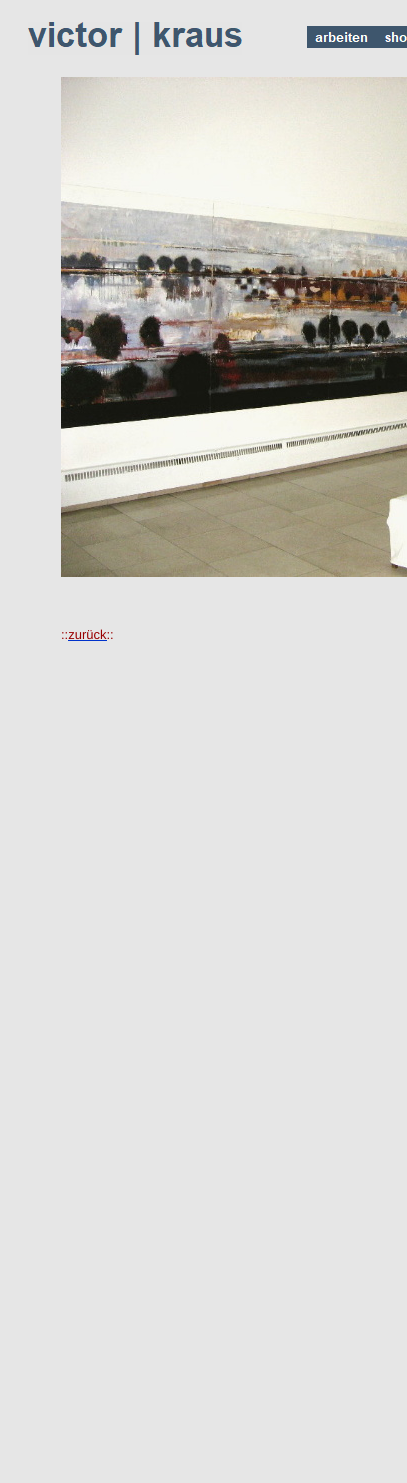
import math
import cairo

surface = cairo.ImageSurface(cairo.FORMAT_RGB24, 407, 1483)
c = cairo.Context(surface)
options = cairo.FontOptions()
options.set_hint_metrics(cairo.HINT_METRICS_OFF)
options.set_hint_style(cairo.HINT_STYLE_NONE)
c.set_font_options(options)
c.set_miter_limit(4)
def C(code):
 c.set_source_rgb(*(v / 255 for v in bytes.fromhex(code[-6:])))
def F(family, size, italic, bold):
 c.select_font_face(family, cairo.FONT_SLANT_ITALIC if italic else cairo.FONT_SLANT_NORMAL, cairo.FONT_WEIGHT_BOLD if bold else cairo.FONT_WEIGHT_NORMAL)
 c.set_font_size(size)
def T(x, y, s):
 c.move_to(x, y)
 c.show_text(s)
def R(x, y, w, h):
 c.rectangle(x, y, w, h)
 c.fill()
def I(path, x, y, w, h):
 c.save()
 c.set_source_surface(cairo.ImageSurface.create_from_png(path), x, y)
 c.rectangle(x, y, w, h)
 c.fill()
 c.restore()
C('e6e6e6')
c.paint()
I('1.png',28,22,214,33)
I('2.png',307,26,70,22)
I('3.png',377,26,30,22)
I('4.png',61,77,346,500)
F('Liberation Sans',13,0,0)
C('990000')
T(61,639,'::zurück::')
C('0033cc')
R(68,640,39,1)
surface.write_to_png('o.png')
